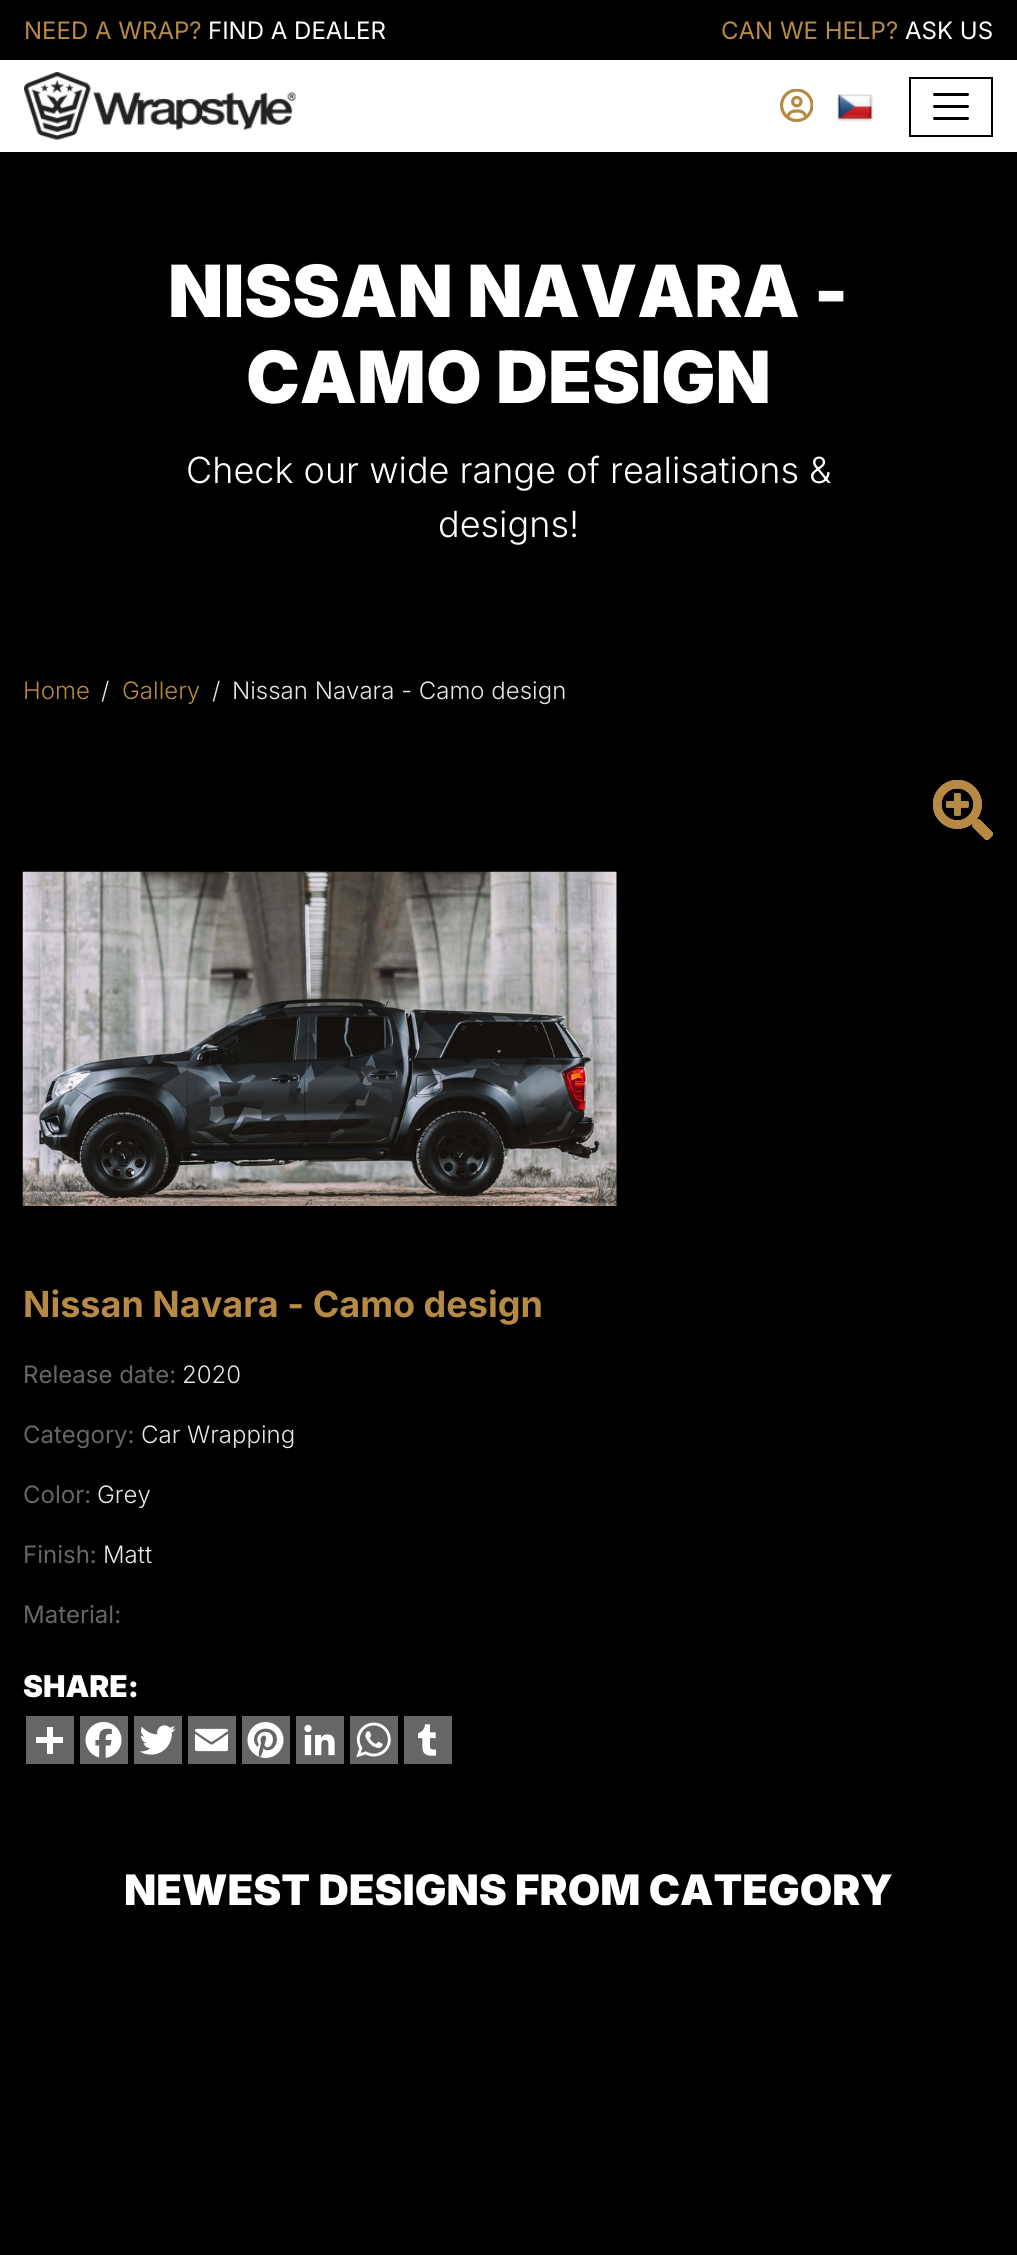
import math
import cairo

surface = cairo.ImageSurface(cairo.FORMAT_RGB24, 1017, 2255)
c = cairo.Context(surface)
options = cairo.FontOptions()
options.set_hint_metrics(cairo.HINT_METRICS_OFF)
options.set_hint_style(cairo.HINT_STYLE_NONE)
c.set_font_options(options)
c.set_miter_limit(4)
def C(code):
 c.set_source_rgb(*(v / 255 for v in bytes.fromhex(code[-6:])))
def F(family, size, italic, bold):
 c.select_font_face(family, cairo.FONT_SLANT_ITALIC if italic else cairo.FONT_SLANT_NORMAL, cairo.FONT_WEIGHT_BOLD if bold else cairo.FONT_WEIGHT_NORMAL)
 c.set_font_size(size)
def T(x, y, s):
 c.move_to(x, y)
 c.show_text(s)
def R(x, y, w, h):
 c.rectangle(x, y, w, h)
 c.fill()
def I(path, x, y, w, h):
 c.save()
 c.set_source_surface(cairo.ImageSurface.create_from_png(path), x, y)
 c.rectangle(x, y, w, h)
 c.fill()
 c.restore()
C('ffffff')
c.paint()
C('000000')
R(0,0,1017,60)
F('Inter',24,0,0)
C('b68944')
T(24,39,'NEED A WRAP?')
C('ffffff')
T(208,39,'FIND A DEALER')
C('b68944')
T(721,39,'CAN WE HELP?')
C('ffffff')
T(905,39,'ASK US')
I('1.png',24,72,272,68)
I('2.png',780,89,33,33)
I('3.png',837,94,36,28)
c.rectangle(910,78,82,58)
C('000000')
c.stroke()
c.new_path()
c.move_to(934.5,94.5)
c.line_to(967.5,94.5)
c.move_to(934.5,106.5)
c.line_to(967.5,106.5)
c.move_to(934.5,118.5)
c.line_to(967.5,118.5)
c.set_line_width(3)
c.set_line_cap(cairo.LINE_CAP_ROUND)
c.stroke()
R(0,152,1017,2103)
F('Inter Black',72,0,0)
C('ffffff')
T(168,317,'NISSAN NAVARA -')
T(246,403,'CAMO DESIGN')
F('Inter Light',36,0,0)
T(186,483,'Check our wide range of realisations &')
T(438,537,'designs!')
F('Inter Light',24,0,0)
C('b68944')
T(23,699,'Home')
C('e6e6e6')
T(101,699,'/')
C('b68944')
T(122,699,'Gallery')
C('e6e6e6')
T(212,699,'/')
T(232,699,'Nissan Navara - Camo design')
I('4.png',933,780,60,60)
I('5.png',933,780,60,60)
I('6.png',933,780,60,60)
I('7.png',22,871,595,335)
F('Inter',36,0,1)
C('b68944')
T(23,1317,'Nissan Navara - Camo design')
F('Inter',24,0,0)
C('666666')
T(23,1383,'Release date:')
F('Inter Light',24,0,0)
C('e6e6e6')
T(182,1383,'2020')
F('Inter',24,0,0)
C('666666')
T(23,1443,'Category:')
F('Inter Light',24,0,0)
C('e6e6e6')
T(141,1443,'Car Wrapping')
F('Inter',24,0,0)
C('666666')
T(23,1503,'Color:')
F('Inter Light',24,0,0)
C('e6e6e6')
T(97,1503,'Grey')
F('Inter',24,0,0)
C('666666')
T(23,1563,'Finish:')
F('Inter Light',24,0,0)
C('e6e6e6')
T(103,1563,'Matt')
F('Inter',24,0,0)
C('666666')
T(23,1623,'Material:')
F('Inter Black',30,0,0)
C('ffffff')
T(23,1697,'SHARE:')
C('666666')
R(26,1716,48,48)
C('ffffff')
R(47,1727,6,27)
R(36,1737,27,6)
C('666666')
R(80,1716,48,48)
I('8.png',85,1722,37,36)
R(134,1716,48,48)
I('9.png',139,1725,37,30)
R(188,1716,48,48)
I('10.png',195,1728,33,24)
R(242,1716,48,48)
I('11.png',247,1722,37,36)
R(296,1716,48,48)
I('12.png',304,1724,31,32)
R(350,1716,48,48)
I('13.png',356,1722,35,36)
R(404,1716,48,48)
I('14.png',418,1724,18,32)
F('Inter Black',42,0,0)
C('ffffff')
T(124,1905,'NEWEST DESIGNS FROM CATEGORY')
surface.write_to_png('o.png')
